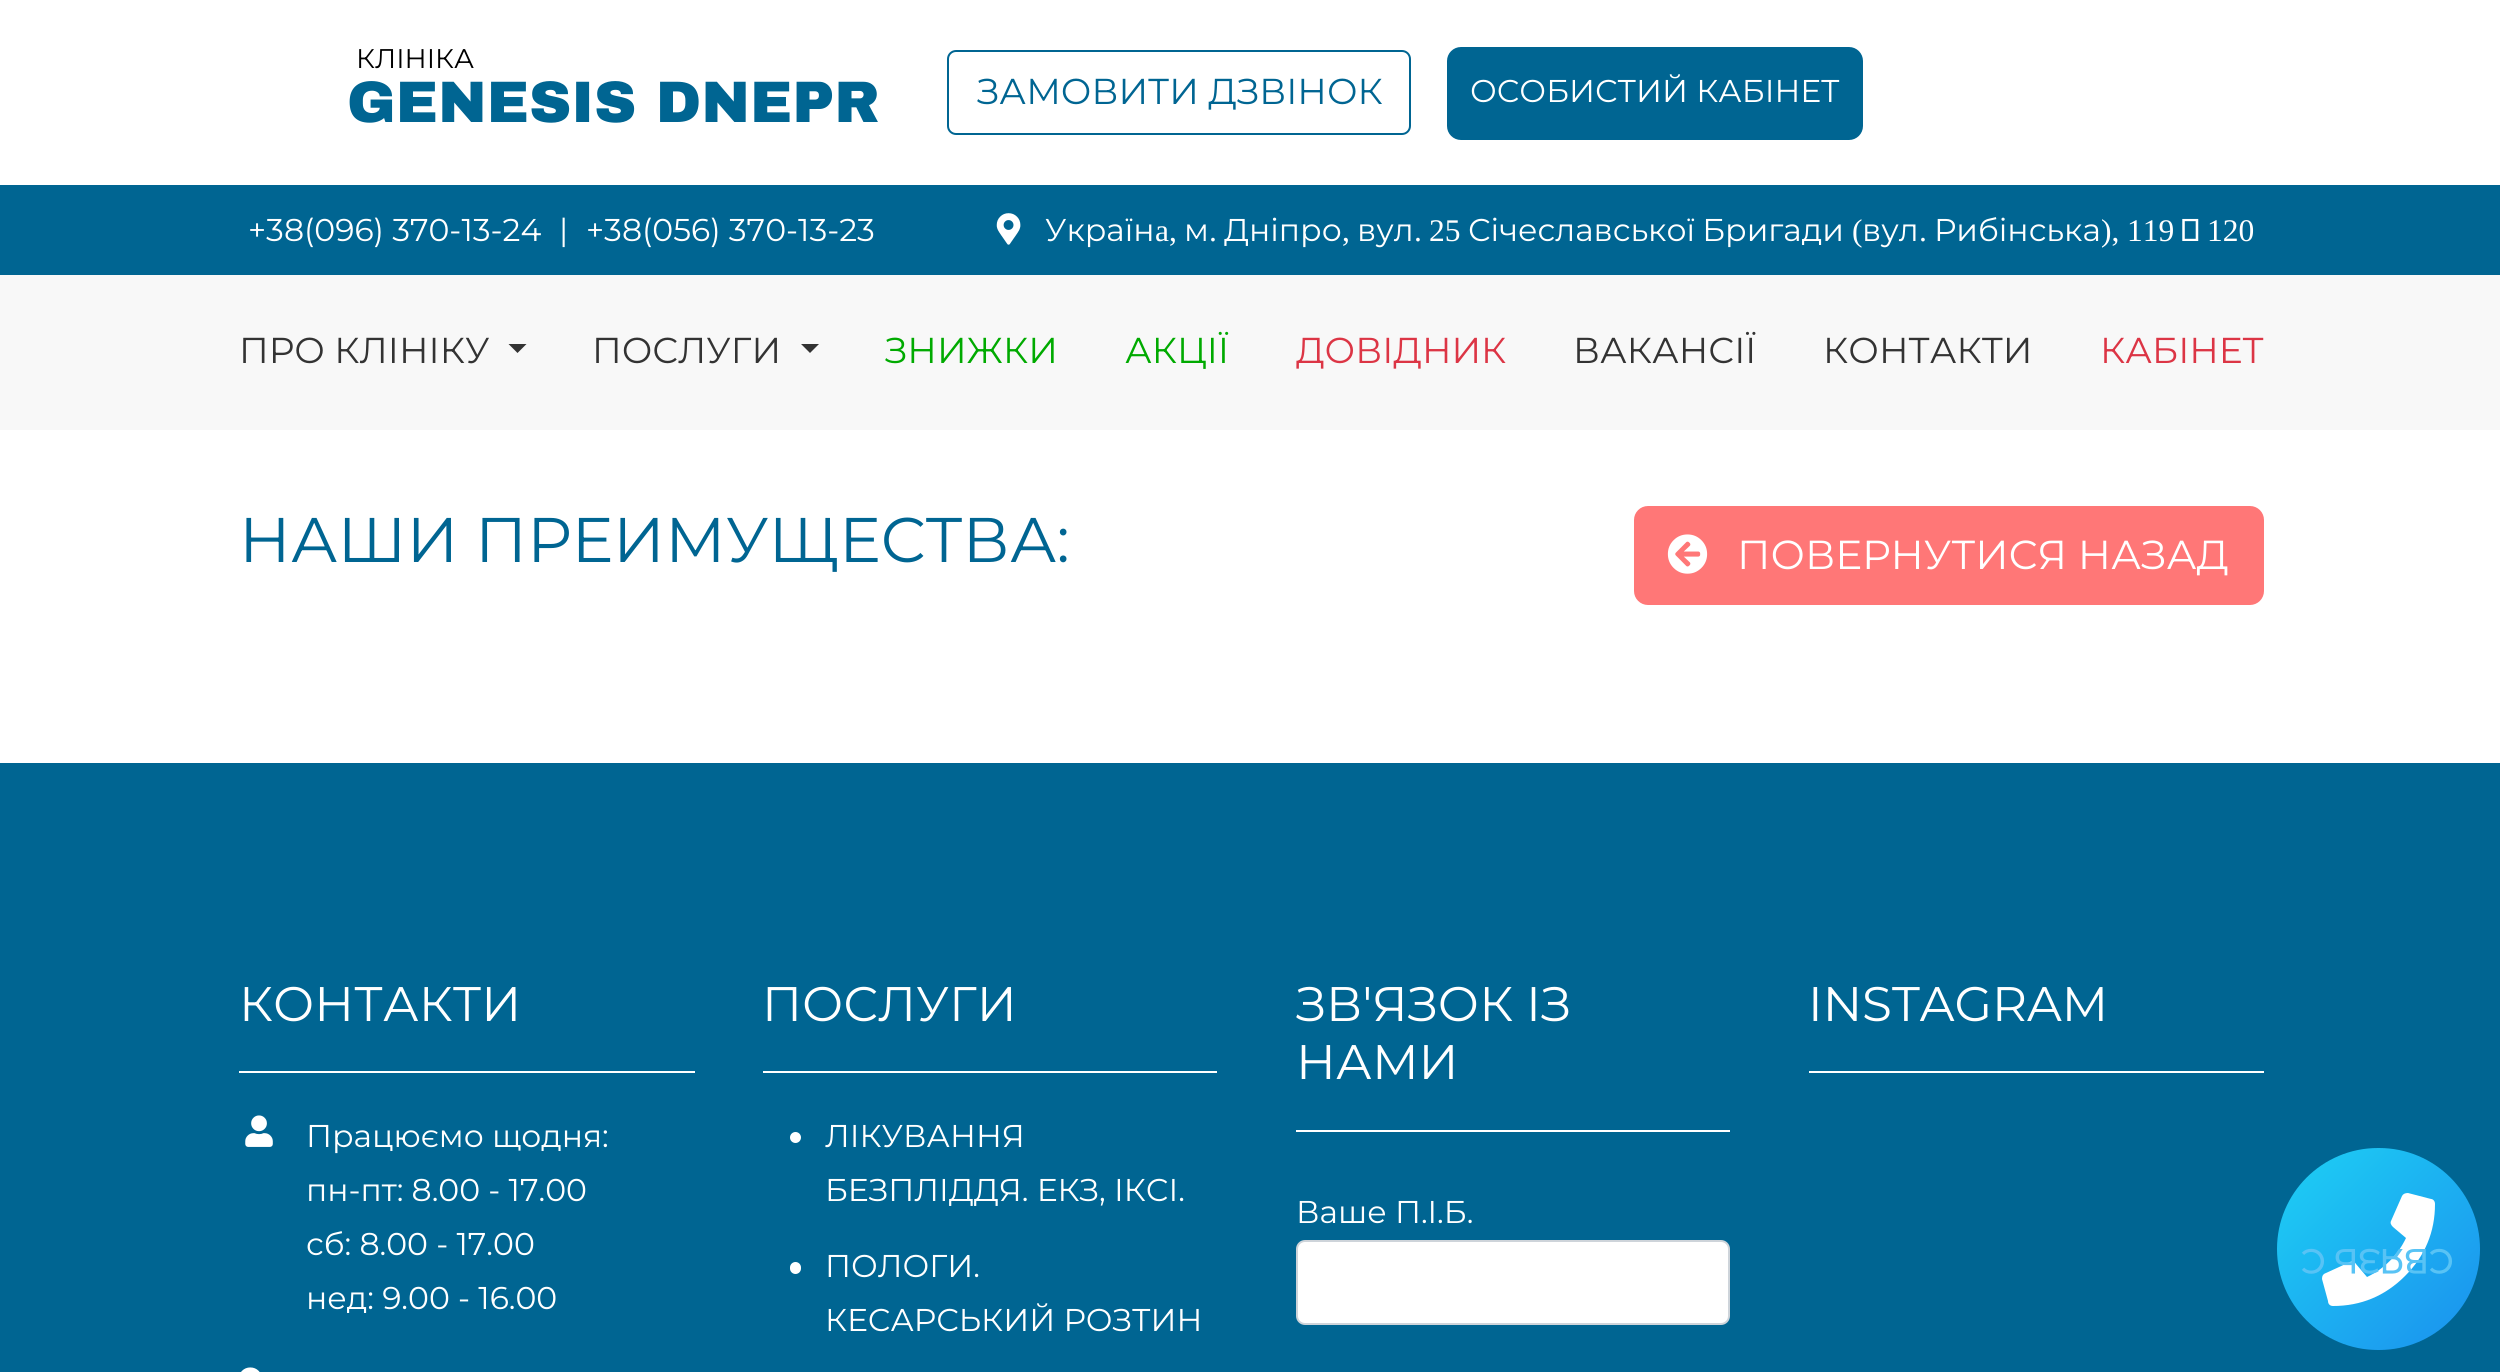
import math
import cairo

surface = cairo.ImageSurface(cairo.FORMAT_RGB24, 2500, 1372)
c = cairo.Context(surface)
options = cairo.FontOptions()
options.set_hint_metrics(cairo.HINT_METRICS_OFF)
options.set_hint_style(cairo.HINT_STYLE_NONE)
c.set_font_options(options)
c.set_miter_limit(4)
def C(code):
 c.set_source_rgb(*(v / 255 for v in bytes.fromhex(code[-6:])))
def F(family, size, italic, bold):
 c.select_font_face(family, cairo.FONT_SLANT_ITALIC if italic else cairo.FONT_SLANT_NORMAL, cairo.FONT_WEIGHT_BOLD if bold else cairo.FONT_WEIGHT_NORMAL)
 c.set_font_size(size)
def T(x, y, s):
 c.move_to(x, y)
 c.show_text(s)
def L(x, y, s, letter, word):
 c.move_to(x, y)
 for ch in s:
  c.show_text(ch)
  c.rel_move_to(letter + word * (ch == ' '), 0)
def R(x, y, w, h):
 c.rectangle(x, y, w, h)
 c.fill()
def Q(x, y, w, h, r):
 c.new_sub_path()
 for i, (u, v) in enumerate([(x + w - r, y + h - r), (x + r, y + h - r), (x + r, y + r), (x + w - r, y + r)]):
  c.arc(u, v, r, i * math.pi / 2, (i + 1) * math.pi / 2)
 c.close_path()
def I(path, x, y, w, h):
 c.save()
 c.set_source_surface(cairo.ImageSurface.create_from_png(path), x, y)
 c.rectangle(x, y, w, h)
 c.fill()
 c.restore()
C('ffffff')
c.paint()
F('Montserrat Thin',27,0,0)
C('000000')
T(356,68,'КЛІНІКА')
F('Archivo Black Black',58.5,0,0)
C('006592')
T(347,122,'GENESIS DNEPR')
Q(948,51,462,83,8)
c.stroke()
F('Montserrat Thin',36,0,0)
T(977,104,'ЗАМОВИТИ ДЗВІНОК')
Q(1449.5,49.5,411,88,11.5)
c.fill_preserve()
c.set_line_width(5)
c.stroke()
F('Montserrat Thin',31.5,0,0)
C('ffffff')
T(1470,102,'ОСОБИСТИЙ КАБІНЕТ')
C('006592')
R(0,185,2500,90)
C('ffffff')
T(248,241,'+38(096) 370-13-24')
T(559,241,'|')
T(586,241,'+38(056) 370-13-23')
I('1.png',996,213,25,32)
T(1045,241,'Україн')
F('Liberation Serif',31.5,0,0)
T(1155,241,'a,')
F('Montserrat Thin',31.5,0,0)
T(1184,241,'м')
F('Liberation Serif',31.5,0,0)
T(1209,241,'.')
F('Montserrat Thin',31.5,0,0)
T(1224,241,'Дніпро')
F('Liberation Serif',31.5,0,0)
T(1342,241,',')
F('Montserrat Thin',31.5,0,0)
T(1357,241,'вул')
F('Liberation Serif',31.5,0,0)
T(1414,241,'.')
T(1429,241,'25')
F('Montserrat Thin',31.5,0,0)
L(1468,241,'Січеславської Бригади',0,-1)
F('Liberation Serif',31.5,0,0)
T(1852,241,'(')
F('Montserrat Thin',31.5,0,0)
T(1862,241,'вул')
F('Liberation Serif',31.5,0,0)
T(1919,241,'.')
F('Montserrat Thin',31.5,0,0)
T(1934,241,'Рибінська')
F('Liberation Serif',31.5,0,0)
T(2101,241,'),')
T(2127,241,'119')
F('Montserrat Thin',31.5,0,0)
T(2181,241,'‑')
F('Liberation Serif',31.5,0,0)
T(2207,241,'120')
C('f8f8f8')
R(0,275,2500,155)
F('Montserrat Thin',36,0,0)
C('333333')
T(239,363,'ПРО КЛІНІКУ')
c.new_path()
c.move_to(508.5,344)
c.line_to(526.5,344)
c.line_to(517.5,353)
c.close_path()
c.fill()
T(592,363,'ПОСЛУГИ')
c.new_path()
c.move_to(801,344)
c.line_to(819,344)
c.line_to(810,353)
c.close_path()
c.fill()
C('00aa00')
T(885,363,'ЗНИЖКИ')
T(1125,363,'АКЦІЇ')
C('dc3545')
T(1296,363,'ДОВІДНИК')
C('333333')
T(1573,363,'ВАКАНСІЇ')
T(1823,363,'КОНТАКТИ')
C('dc3545')
T(2100,363,'КАБІНЕТ')
F('Montserrat Thin',63,0,0)
C('006592')
T(239,562,'НАШИ ПРЕИМУЩЕСТВА:')
C('ff7777')
Q(1634,506,630,99,14)
c.fill()
I('2.png',1667,534,41,40)
F('Montserrat Thin',40.5,0,0)
C('ffffff')
T(1737,569,'ПОВЕРНУТИСЯ НАЗАД')
C('006592')
R(0,763,2500,609)
F('Montserrat Thin',48.5,0,0)
C('ffffff')
T(239,1021,'КОНТАКТИ')
R(239,1071,456,2)
I('3.png',245,1115,28,32)
F('Montserrat Thin',31.5,0,0)
T(306,1147,'Працюємо щодня:')
T(306,1201,'пн-пт: 8.00 - 17.00')
T(306,1255,'сб: 8.00 - 17.00')
T(306,1309,'нед: 9.00 - 16.00')
I('4.png',241,1367,19,5)
F('Montserrat Thin',48.5,0,0)
T(762,1021,'ПОСЛУГИ')
R(763,1071,454,2)
c.new_path()
c.arc(795.5,1137.5,5.5,0,2 * math.pi)
c.fill()
F('Montserrat Thin',31.5,0,0)
T(825,1147,'ЛІКУВАННЯ')
T(825,1201,'БЕЗПЛІДДЯ. ЕКЗ, ІКСІ.')
Q(790,1262,11,12,5.5)
c.fill()
T(825,1277,'ПОЛОГИ.')
T(825,1331,'КЕСАРСЬКИЙ РОЗТИН')
F('Montserrat Thin',48.5,0,0)
T(1296,1021,'ЗВ\'ЯЗОК ІЗ')
T(1296,1079,'НАМИ')
R(1296,1130,434,2)
F('Montserrat Thin',31.5,0,0)
T(1296,1223,'Ваше П.I.Б.')
Q(1297,1241,432,83,8)
c.fill_preserve()
C('ced4da')
c.set_line_width(2)
c.stroke()
F('Montserrat Thin',48.5,0,0)
C('ffffff')
T(1808,1021,'INSTAGRAM')
R(1809,1071,455,2)
gradient = cairo.LinearGradient(2277,1148,2480,1350)
gradient.add_color_stop_rgba(0,0.114,0.816,0.957,1)
gradient.add_color_stop_rgba(1,0.106,0.565,0.933,1)
c.set_source(gradient)
Q(2277,1148,203,202,101)
c.fill()
C('ffffff')
c.new_path()
c.move_to(2431,1199)
c.curve_to(2433,1199,2435,1201,2435,1204)
c.curve_to(2435,1232,2425,1256,2405,1276)
c.curve_to(2385,1296,2361,1306,2333,1306)
c.curve_to(2330,1306,2328,1304,2328,1301)
c.line_to(2322,1279)
c.curve_to(2322,1276,2323,1274,2326,1273)
c.line_to(2350,1262)
c.curve_to(2352,1261,2355,1262,2356,1264)
c.line_to(2367,1277)
c.curve_to(2384,1269,2398,1255,2406,1238)
c.line_to(2393,1227)
c.curve_to(2391,1225,2390,1223,2391,1221)
c.line_to(2402,1196)
c.curve_to(2403,1194,2405,1193,2408,1193)
c.close_path()
c.fill()
F('Montserrat',33.75,0,1)
C('58c3f5')
c.save()
c.translate(2454,1249)
c.rotate(180 * math.pi / 180)
T(0,0,'СВЯЗЬ С')
c.restore()
surface.write_to_png('o.png')
